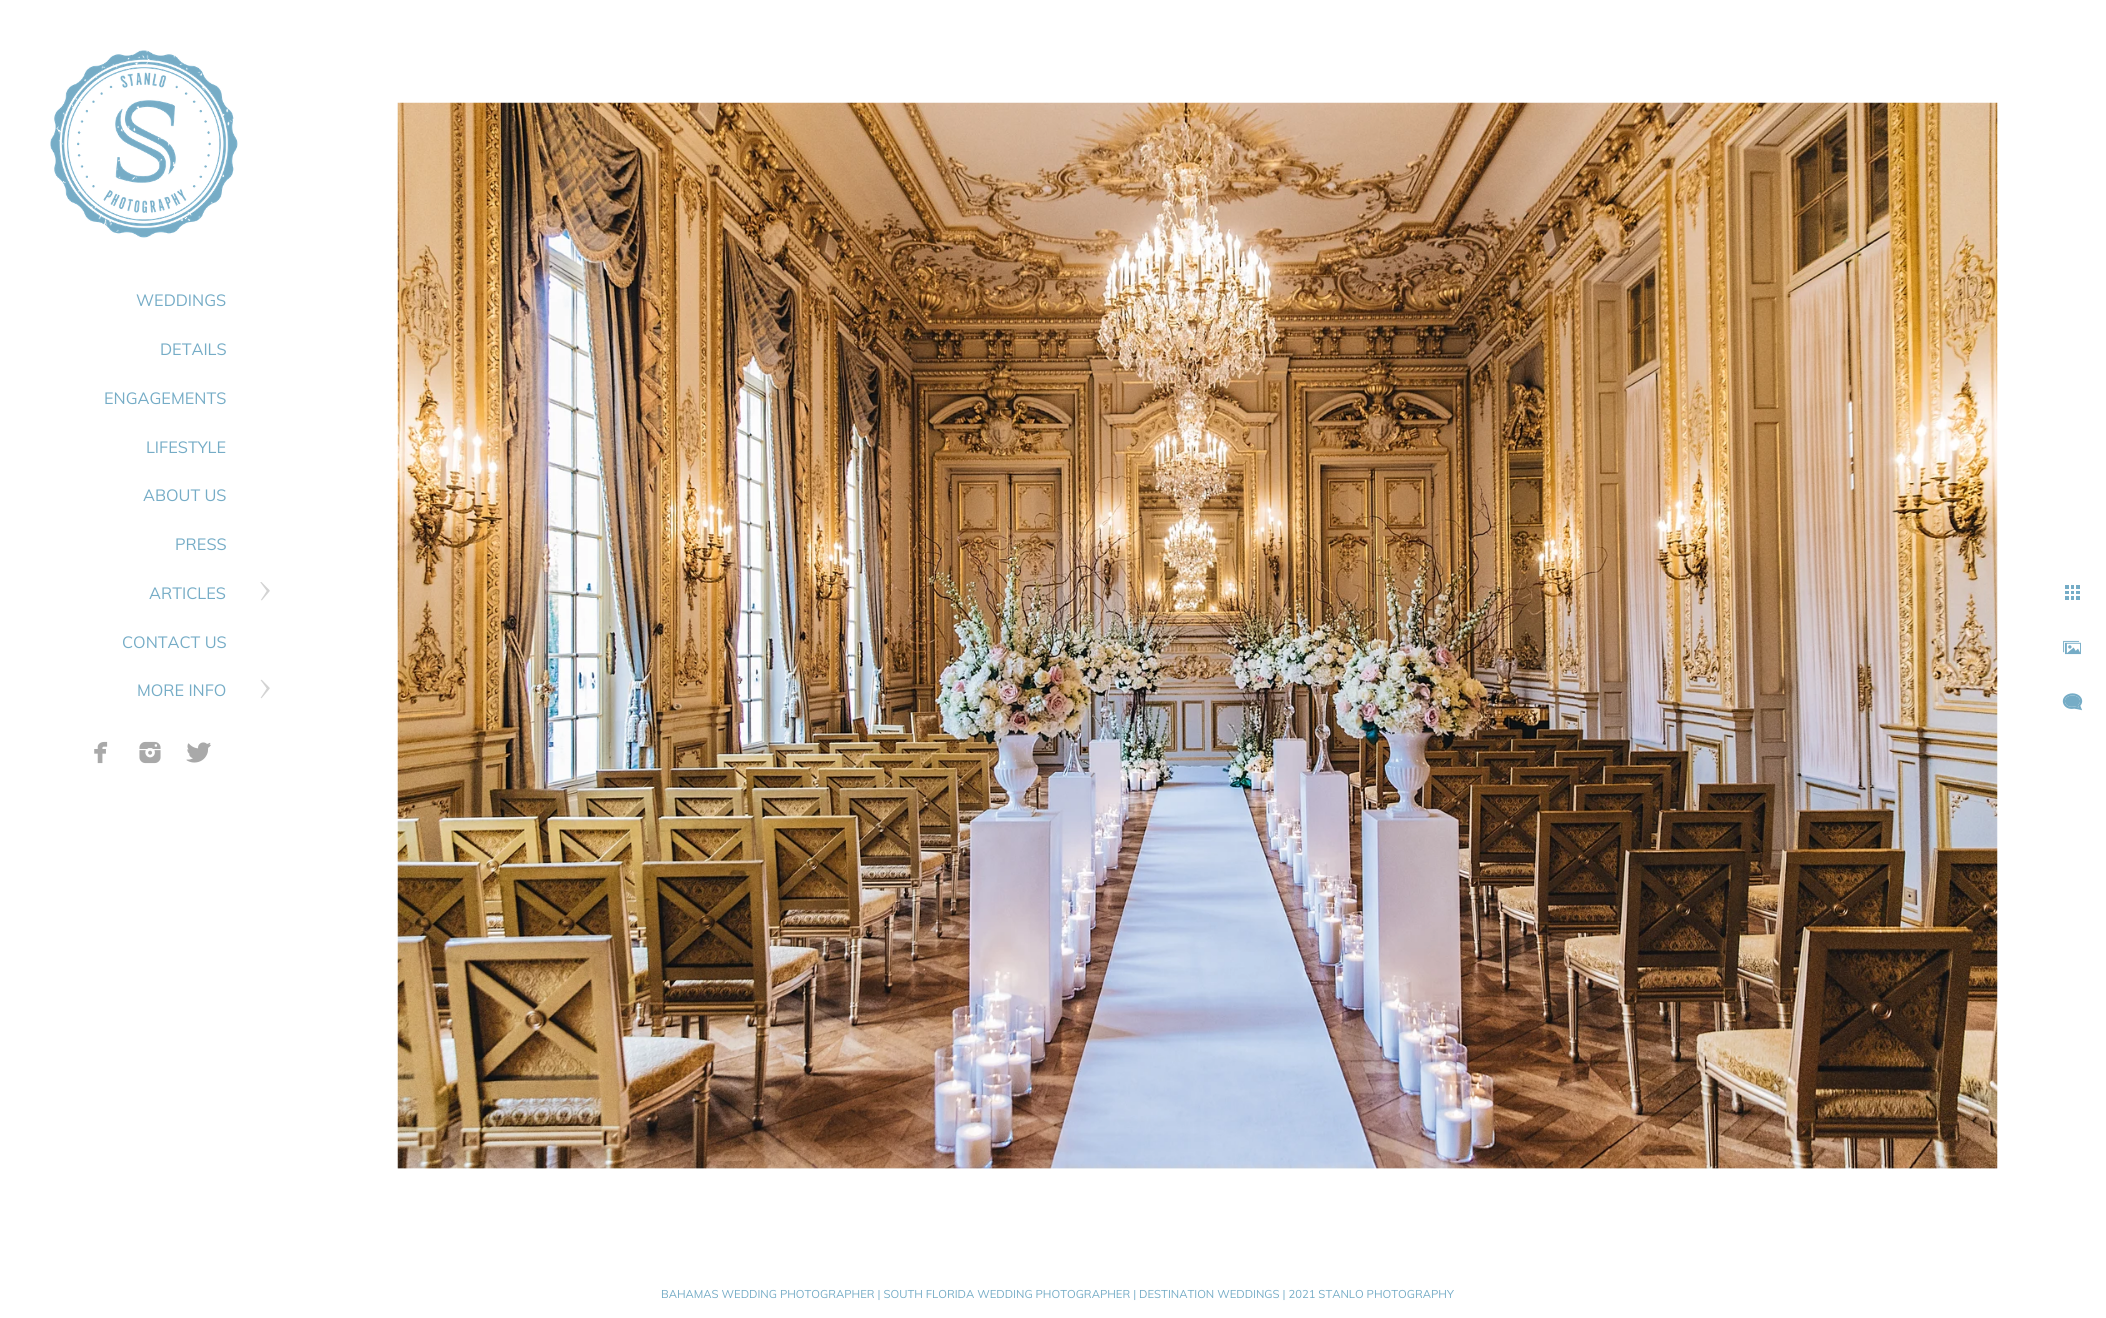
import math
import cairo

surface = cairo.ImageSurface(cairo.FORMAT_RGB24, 2106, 1318)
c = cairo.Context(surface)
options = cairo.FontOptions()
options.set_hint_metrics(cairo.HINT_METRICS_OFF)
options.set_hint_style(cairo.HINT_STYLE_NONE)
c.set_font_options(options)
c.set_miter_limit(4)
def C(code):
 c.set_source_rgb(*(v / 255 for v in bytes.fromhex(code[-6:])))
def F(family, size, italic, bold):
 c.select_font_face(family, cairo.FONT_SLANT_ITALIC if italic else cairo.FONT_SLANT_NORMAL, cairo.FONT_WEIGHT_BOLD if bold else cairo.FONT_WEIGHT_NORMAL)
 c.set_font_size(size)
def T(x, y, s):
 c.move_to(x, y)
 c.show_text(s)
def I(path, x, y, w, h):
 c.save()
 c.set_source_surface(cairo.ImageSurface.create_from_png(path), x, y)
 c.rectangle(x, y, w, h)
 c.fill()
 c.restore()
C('ffffff')
c.paint()
I('1.png',50,50,188,188)
F('Muli',16.25,0,0)
C('75acc6')
T(136,306,'WEDDINGS')
T(160,355,'DETAILS')
T(104,404,'ENGAGEMENTS')
T(146,453,'LIFESTYLE')
T(143,501,'ABOUT US')
T(175,550,'PRESS')
T(149,599,'ARTICLES')
I('2.png',260,582,10,19)
T(122,648,'CONTACT US')
T(137,696,'MORE INFO')
I('3.png',260,679,10,20)
I('4.png',94,741,14,23)
I('5.png',139,741,22,23)
I('6.png',186,742,25,21)
I('7.png',397,102,1601,1067)
I('8.png',2065,585,15,15)
I('9.png',2063,640,18,15)
I('10.png',2062,693,21,18)
F('Muli',11.25,0,0)
T(661,1298,'BAHAMAS WEDDING PHOTOGRAPHER | SOUTH FLORIDA WEDDING PHOTOGRAPHER | DESTINATION WEDDINGS | 2021 STANLO PHOTOGRAPHY')
surface.write_to_png('o.png')
